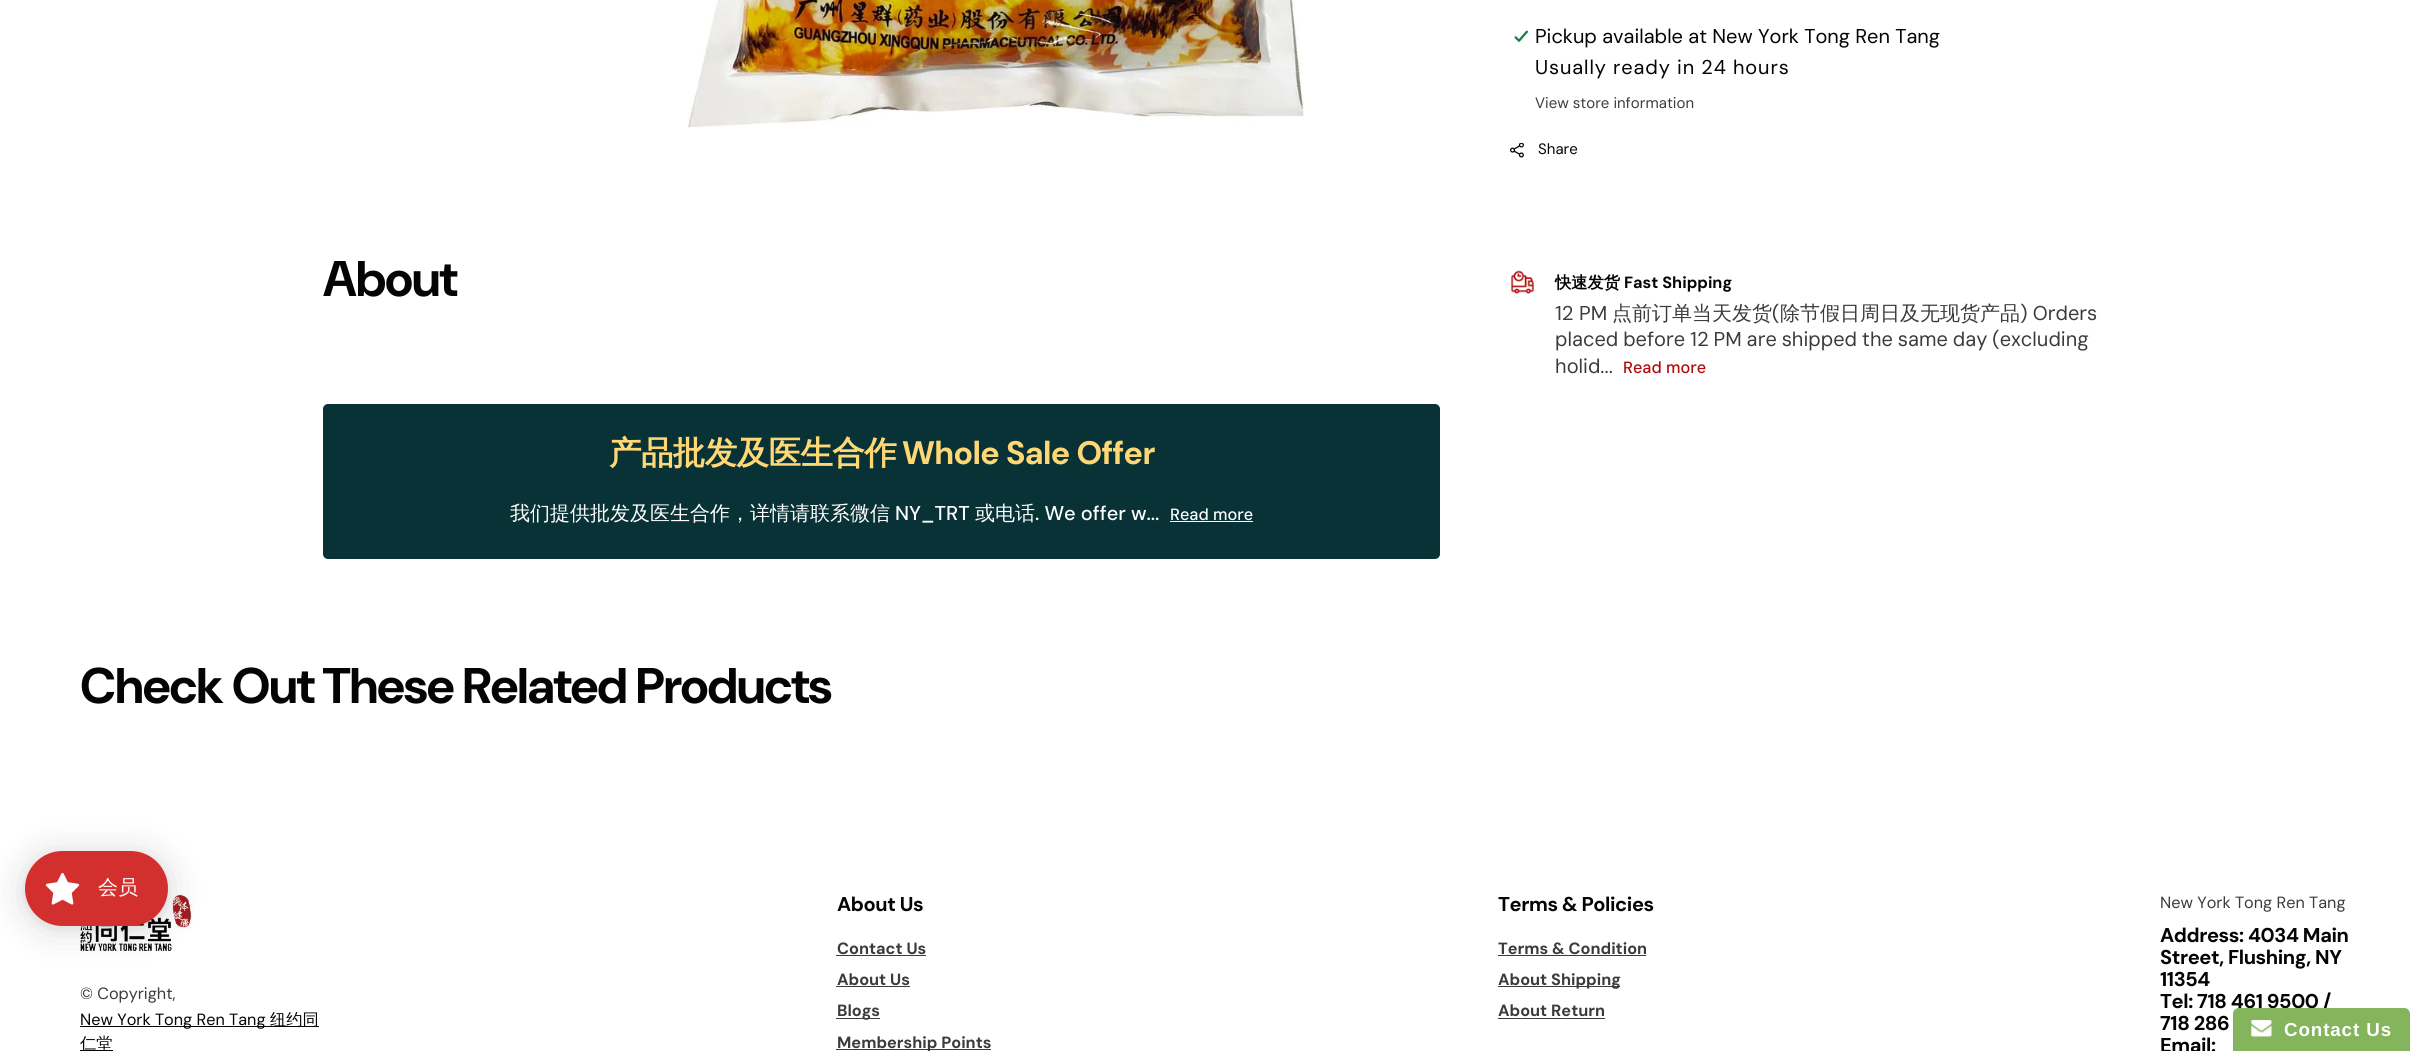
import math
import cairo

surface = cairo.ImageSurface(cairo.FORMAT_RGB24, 2435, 1051)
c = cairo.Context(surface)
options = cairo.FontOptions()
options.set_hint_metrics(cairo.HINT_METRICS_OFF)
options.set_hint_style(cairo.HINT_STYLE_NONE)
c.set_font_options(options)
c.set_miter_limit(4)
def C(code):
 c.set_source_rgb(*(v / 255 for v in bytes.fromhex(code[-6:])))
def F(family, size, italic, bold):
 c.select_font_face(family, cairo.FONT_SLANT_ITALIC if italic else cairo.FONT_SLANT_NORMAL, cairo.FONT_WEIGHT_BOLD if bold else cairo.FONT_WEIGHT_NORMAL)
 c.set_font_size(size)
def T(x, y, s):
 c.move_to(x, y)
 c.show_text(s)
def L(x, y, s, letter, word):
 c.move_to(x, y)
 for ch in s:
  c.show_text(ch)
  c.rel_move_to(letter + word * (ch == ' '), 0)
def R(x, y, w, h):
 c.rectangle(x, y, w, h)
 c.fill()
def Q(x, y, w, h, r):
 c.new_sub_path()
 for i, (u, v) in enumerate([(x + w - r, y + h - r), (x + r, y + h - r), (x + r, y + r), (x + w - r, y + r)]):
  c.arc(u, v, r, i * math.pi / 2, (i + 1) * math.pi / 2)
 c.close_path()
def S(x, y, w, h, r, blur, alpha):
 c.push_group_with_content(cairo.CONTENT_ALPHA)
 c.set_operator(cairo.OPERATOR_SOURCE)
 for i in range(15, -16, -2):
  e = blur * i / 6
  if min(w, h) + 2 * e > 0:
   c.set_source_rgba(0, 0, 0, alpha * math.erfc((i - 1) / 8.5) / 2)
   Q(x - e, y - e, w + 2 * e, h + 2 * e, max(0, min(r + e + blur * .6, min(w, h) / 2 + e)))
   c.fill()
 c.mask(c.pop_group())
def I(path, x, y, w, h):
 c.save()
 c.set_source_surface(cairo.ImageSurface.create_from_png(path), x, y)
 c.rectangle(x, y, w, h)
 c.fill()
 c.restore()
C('ffffff')
c.paint()
I('1.png',688,0,616,128)
F('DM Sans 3',50,0,1)
C('040404')
L(323,296,'About',-1,0)
C('083236')
Q(323,404,1117,155,5)
c.fill()
F('WenQuanYi Zen Hei',32.5,0,1)
C('ffd875')
L(609,464,'产品批发及医生合作',-.6,0)
F('DM Sans',32.5,0,1)
L(902,464,'Whole Sale Offer',-.6,0)
F('WenQuanYi Zen Hei Medium',20,0,0)
C('ffffff')
T(510,520,'我们提供批发及医生合作，详情请联系微信')
F('DM Sans Medium',20,0,0)
T(895,520,'NY_TRT')
F('WenQuanYi Zen Hei Medium',20,0,0)
T(975,520,'或电话')
F('DM Sans Medium',20,0,0)
T(1035,520,'. We offer w...')
F('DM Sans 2 Medium',16.25,0,0)
T(1170,520,'Read more')
R(1170,521,83,1)
I('2.png',1514,30,15,13)
F('DM Sans',20,0,0)
C('040404')
T(1535,43,'Pickup available at New York Tong Ren Tang')
L(1535,74,'Usually ready in 24 hours',.9,0)
F('DM Sans 3',15,0,0)
C('3b3b3b')
T(1535,108,'View store information')
I('3.png',1510,143,14,15)
C('040404')
T(1538,154,'Share')
I('4.png',1510,270,25,24)
F('WenQuanYi Zen Hei',16.25,0,1)
T(1555,288,'快速发货')
F('DM Sans 2',16.25,0,1)
T(1624,288,'Fast Shipping')
F('DM Sans 2',20,0,0)
C('3b3b3b')
T(1555,320,'12 PM')
F('WenQuanYi Zen Hei Medium',20,0,0)
T(1612,320,'点前订单当天发货')
F('DM Sans 2',20,0,0)
T(1772,320,'(')
F('WenQuanYi Zen Hei Medium',20,0,0)
T(1780,320,'除节假日周日及无现货产品')
F('DM Sans 2',20,0,0)
T(2020,320,') Orders')
L(1555,346,'placed before 12 PM are shipped the same day (excluding',0,-.5)
T(1555,373,'holid...')
F('DM Sans 2 Medium',16.25,0,0)
C('af0b0b')
T(1623,373,'Read more')
F('DM Sans 3',50,0,1)
C('040404')
L(80,703,'Check Out These Related Products',-1,0)
I('6.png',80,894,113,58)
C('000000')
S(25,854,143,75,37.5,19,.15)
S(25,853,143,75,37.5,4,.05)
C('d32f2f')
Q(25,851,143,75,37.5)
c.fill()
I('5.png',45,872,35,33)
F('WenQuanYi Zen Hei Medium',20,0,0)
C('ffffff')
T(98,894,'会员')
F('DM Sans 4',16.25,0,0)
C('3b3b3b')
T(80,999,'© Copyright,')
C('040404')
R(80,1026,239,1)
T(80,1025,'New York Tong Ren Tang')
F('WenQuanYi Zen Hei Medium',16.25,0,0)
T(270,1025,'纽约同')
R(80,1050,33,1)
T(80,1049,'仁堂')
F('DM Sans 4',20,0,1)
L(837,911,'About Us',-.4,0)
F('DM Sans 2',16.25,0,1)
C('3b3b3b')
T(837,954,'Contact Us')
R(836,955,90,1)
T(837,985,'About Us')
R(836,986,74,1)
R(836,1018,44,1)
T(837,1016,'Blogs')
R(836,1049,155,1)
T(837,1048,'Membership Points')
F('DM Sans 4',20,0,1)
C('040404')
L(1498,911,'Terms & Policies',-.4,0)
F('DM Sans 2',16.25,0,1)
C('3b3b3b')
T(1498,954,'Terms & Condition')
R(1498,955,148,1)
R(1498,986,122,1)
T(1498,985,'About Shipping')
T(1498,1016,'About Return')
R(1498,1018,107,1)
F('DM Sans 4',16.25,0,0)
T(2160,908,'New York Tong Ren Tang')
F('DM Sans 4',20,0,1)
C('040404')
L(2160,942,'Address: 4034 Main',-.4,0)
L(2160,964,'Street, Flushing, NY',-.4,0)
L(2160,986,'11354',-.4,0)
L(2160,1008,'Tel: 718 461 9500 /',-.4,0)
L(2160,1030,'718 286',-.4,0)
L(2160,1052,'Email:',-.4,0)
C('84b45b')
c.new_path()
c.move_to(2239,1008)
c.line_to(2404,1008)
c.curve_to(2407.5,1008,2410,1010.5,2410,1014)
c.line_to(2410,1051)
c.line_to(2233,1051)
c.line_to(2233,1014)
c.curve_to(2233,1010.5,2235.5,1008,2239,1008)
c.close_path()
c.fill()
I('7.png',2251,1020,21,17)
F('Liberation Sans',18.75,0,1)
C('ffffff')
L(2284,1036,'Contact Us',.9,0)
surface.write_to_png('o.png')
